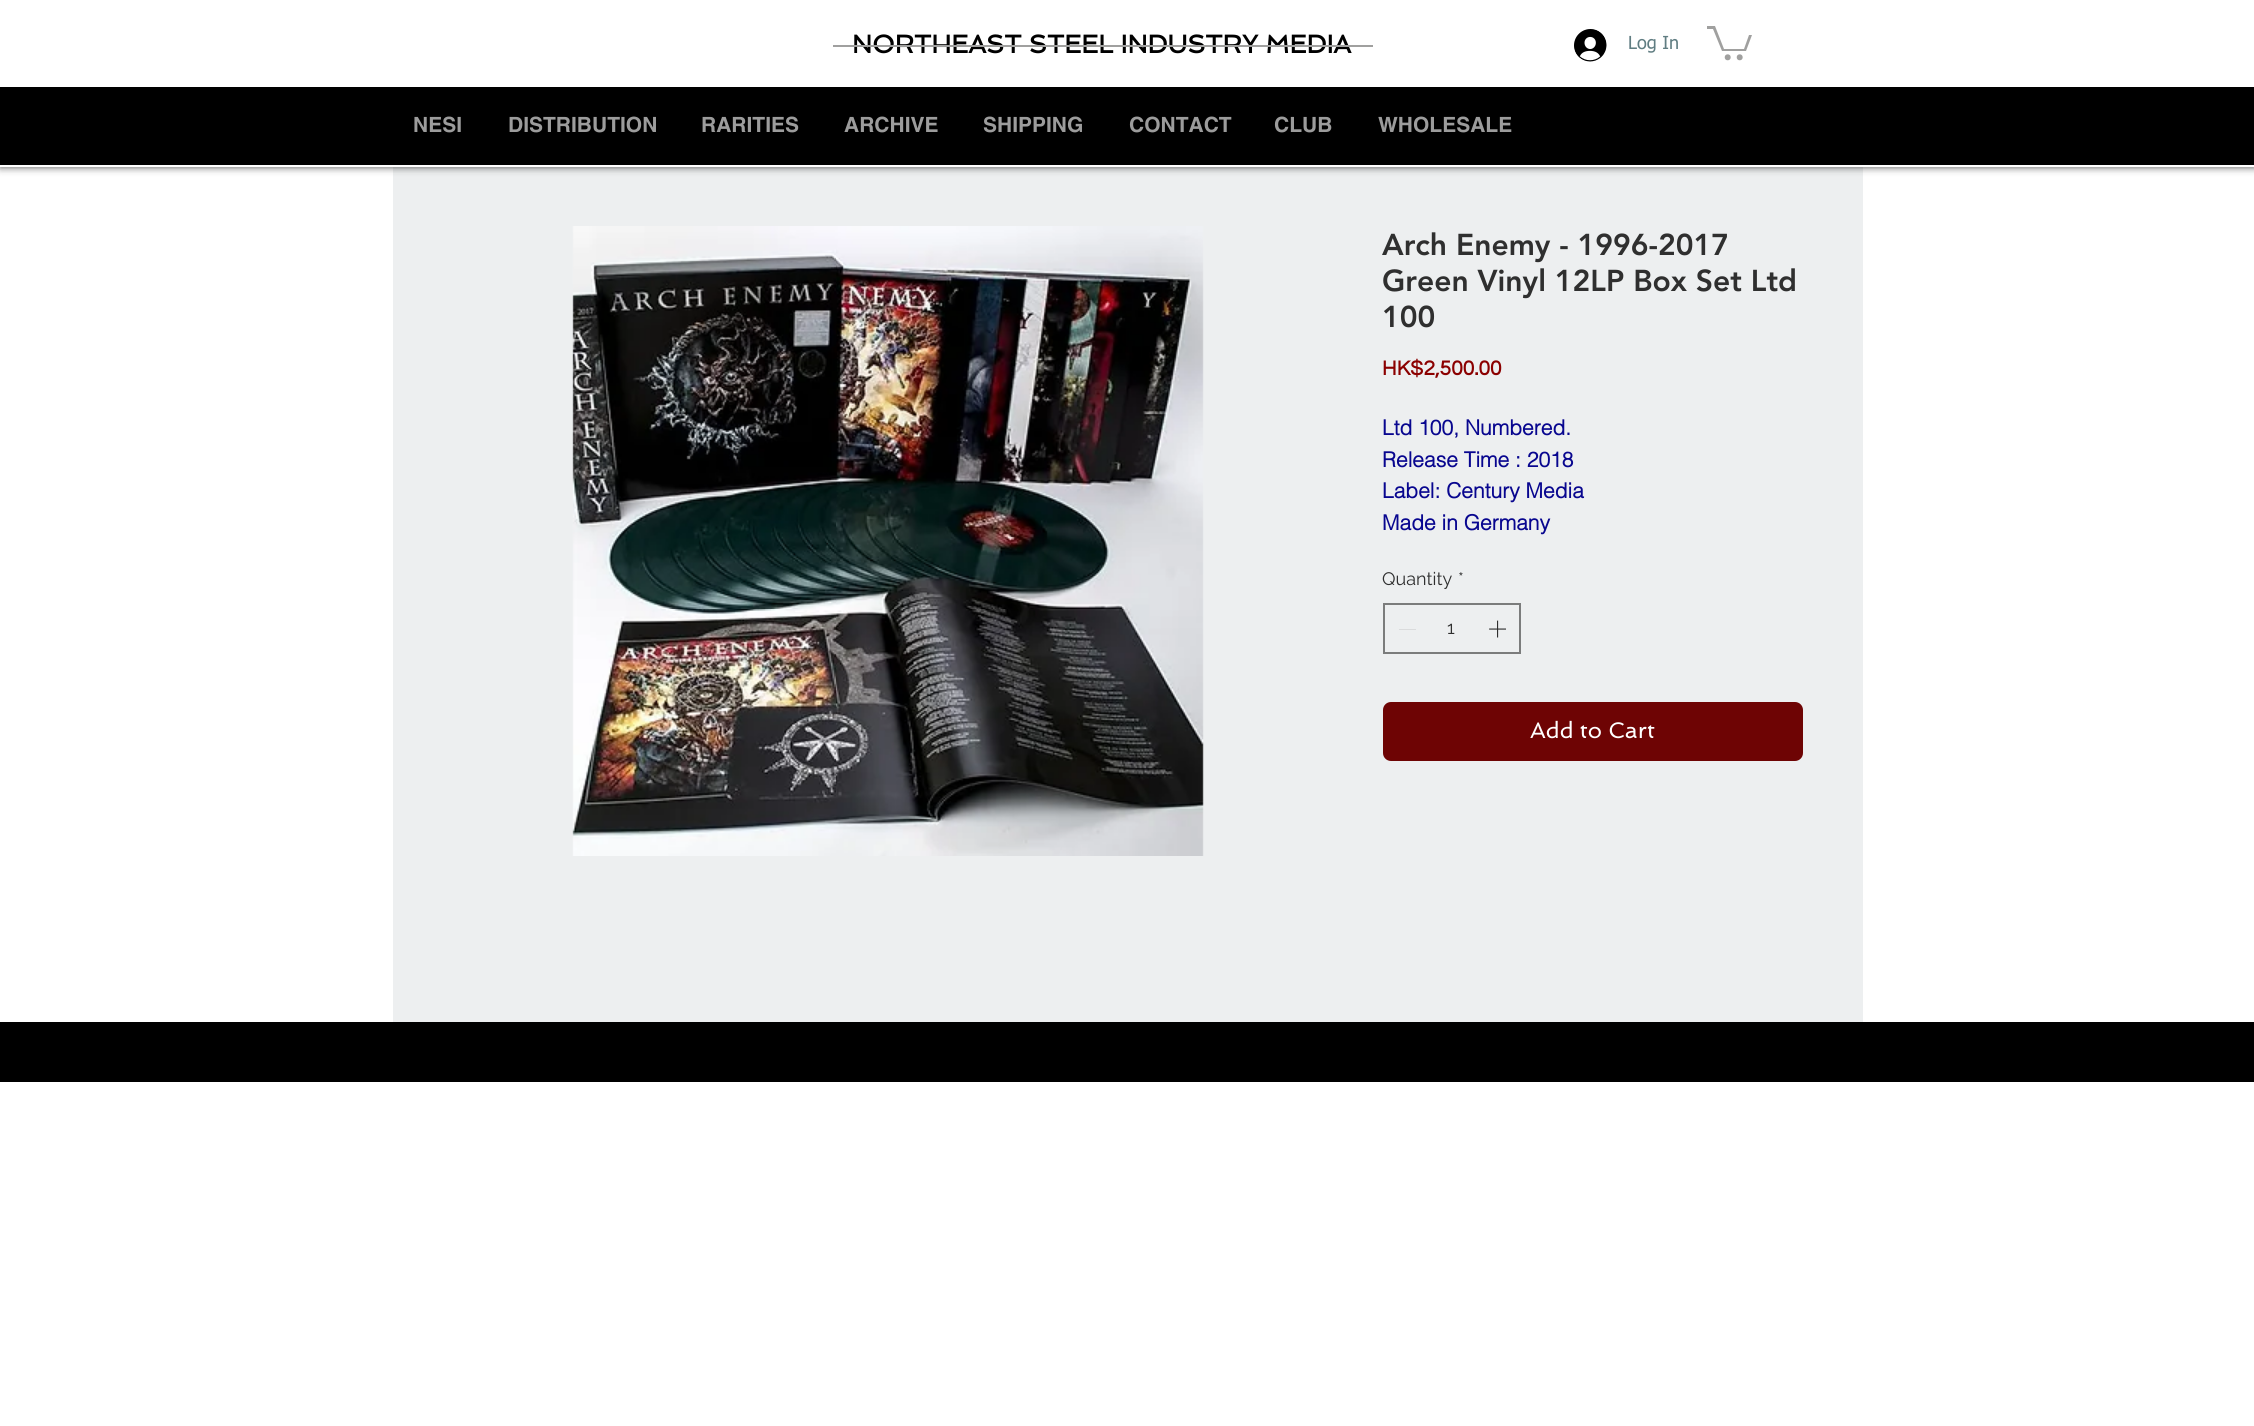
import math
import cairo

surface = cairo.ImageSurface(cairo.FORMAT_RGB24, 2254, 1426)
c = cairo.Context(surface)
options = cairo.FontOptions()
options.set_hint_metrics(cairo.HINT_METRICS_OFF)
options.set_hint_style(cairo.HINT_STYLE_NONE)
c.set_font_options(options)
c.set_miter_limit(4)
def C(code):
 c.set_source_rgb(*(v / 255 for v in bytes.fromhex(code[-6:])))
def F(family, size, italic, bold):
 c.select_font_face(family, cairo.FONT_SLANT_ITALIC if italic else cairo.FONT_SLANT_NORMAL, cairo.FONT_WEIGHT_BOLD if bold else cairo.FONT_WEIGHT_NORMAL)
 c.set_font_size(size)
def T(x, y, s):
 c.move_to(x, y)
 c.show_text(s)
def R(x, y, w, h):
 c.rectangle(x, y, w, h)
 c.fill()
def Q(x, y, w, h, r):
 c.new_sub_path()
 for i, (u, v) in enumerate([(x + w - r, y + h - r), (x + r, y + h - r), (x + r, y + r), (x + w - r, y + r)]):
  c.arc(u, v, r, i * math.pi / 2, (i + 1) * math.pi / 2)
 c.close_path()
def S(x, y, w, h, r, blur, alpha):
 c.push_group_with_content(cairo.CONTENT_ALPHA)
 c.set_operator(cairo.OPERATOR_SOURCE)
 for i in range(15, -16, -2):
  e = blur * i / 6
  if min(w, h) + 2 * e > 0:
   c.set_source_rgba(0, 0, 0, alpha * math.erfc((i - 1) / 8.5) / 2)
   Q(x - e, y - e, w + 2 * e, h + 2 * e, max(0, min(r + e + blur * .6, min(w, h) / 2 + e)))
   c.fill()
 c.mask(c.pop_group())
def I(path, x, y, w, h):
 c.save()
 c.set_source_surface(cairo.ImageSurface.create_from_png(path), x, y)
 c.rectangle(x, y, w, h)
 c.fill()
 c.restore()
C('ffffff')
c.paint()
C('edeff0')
R(393,167,1470,855)
C('000000')
S(0,0,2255,167,0,4,.7)
C('ffffff')
R(0,0,2254,167)
F('Spinnaker',25.5,0,1)
C('000000')
T(852,53,'NORTHEAST STEEL INDUSTRY MEDIA')
I('1.png',1574,29,33,33)
F('tahoma',18,0,0)
C('607d82')
T(1628,49,'Log In')
C('a0a09f')
c.new_path()
c.move_to(1752,35)
c.line_to(1746,51)
c.line_to(1722,51)
c.line_to(1713,29)
c.line_to(1707,29)
c.line_to(1707,26)
c.line_to(1715,26)
c.line_to(1724,49)
c.line_to(1744,49)
c.line_to(1749,35)
c.fill()
c.arc(1739.7,57.3,3,0,2 * math.pi)
c.fill()
c.arc(1727.7,57.3,3,0,2 * math.pi)
c.fill()
R(833,45,540,2)
C('000000')
R(0,87,2254,78)
F('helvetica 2',21,0,1)
C('9c9c9c')
T(413,132,'NESI')
T(508,132,'DISTRIBUTION')
T(701,132,'RARITIES')
T(844,132,'ARCHIVE')
T(983,132,'SHIPPING')
T(1129,132,'CONTACT')
T(1274,132,'CLUB')
T(1378,132,'WHOLESALE')
I('2.png',572,226,632,630)
F('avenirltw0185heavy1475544 Black',30,0,0)
C('2f2f2f')
T(1382,255,'Arch Enemy - 1996-2017')
T(1382,291,'Green Vinyl 12LP Box Set Ltd')
T(1382,327,'100')
F('Questrial',21,0,1)
C('8b0000')
T(1382,375,'HK$2,500.00')
F('helvetica',21,0,1)
C('08068f')
T(1382,435,'Ltd 100, Numbered.')
T(1382,467,'Release Time : 2018')
T(1382,498,'Label: Century Media')
T(1382,530,'Made in Germany')
F('Raleway',18,0,0)
C('2f2f2f')
T(1382,585,'Quantity')
T(1458,585,'*')
c.rectangle(1384,604,136,49)
C('7b7c7c')
c.stroke()
C('dadbdc')
R(1399,629,17,1)
C('2f2f2f')
T(1447,634,'1')
I('3.png',1489,620,17,18)
C('6e0404')
Q(1383,702,420,59,8)
c.fill()
F('Spinnaker',22.5,0,0)
C('ffffff')
T(1530,738,'Add to Cart')
C('000000')
R(0,1022,2254,60)
surface.write_to_png('o.png')
